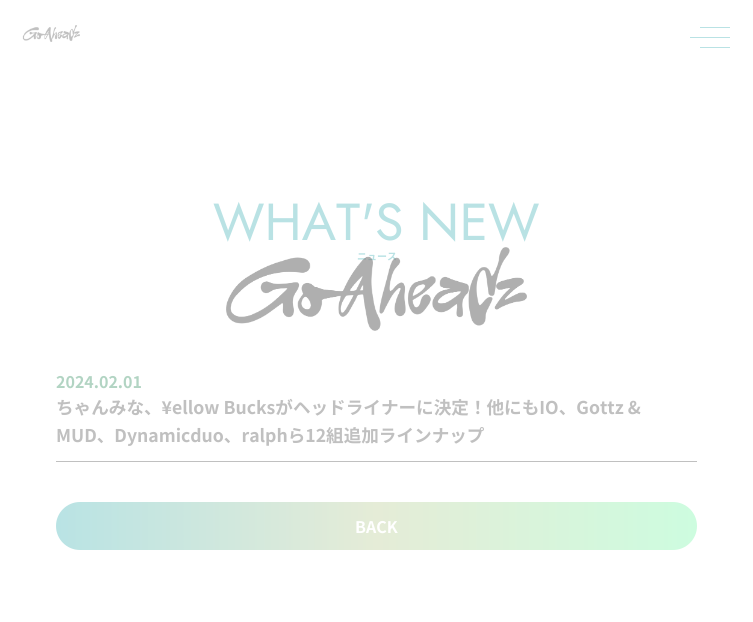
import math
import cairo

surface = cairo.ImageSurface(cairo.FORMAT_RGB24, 753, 622)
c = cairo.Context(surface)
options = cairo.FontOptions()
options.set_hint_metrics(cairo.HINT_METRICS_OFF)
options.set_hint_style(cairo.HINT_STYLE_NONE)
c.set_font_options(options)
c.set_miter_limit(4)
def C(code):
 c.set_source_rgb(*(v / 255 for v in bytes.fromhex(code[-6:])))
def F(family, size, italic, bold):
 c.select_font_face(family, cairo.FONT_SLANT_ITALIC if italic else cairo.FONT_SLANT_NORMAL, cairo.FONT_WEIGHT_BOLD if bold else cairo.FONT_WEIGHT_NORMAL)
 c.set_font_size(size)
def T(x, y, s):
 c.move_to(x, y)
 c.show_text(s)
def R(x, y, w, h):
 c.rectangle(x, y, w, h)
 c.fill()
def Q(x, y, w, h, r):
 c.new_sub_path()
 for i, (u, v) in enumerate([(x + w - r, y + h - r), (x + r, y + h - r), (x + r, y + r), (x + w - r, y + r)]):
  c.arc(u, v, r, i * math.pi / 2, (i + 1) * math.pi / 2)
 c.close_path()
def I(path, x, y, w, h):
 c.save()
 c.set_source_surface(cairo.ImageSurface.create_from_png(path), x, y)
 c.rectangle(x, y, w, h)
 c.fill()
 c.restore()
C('ffffff')
c.paint()
I('1.png',22,25,58,17)
C('b9e2e4')
R(690,37,40,1)
R(700,27,30,1)
R(700,47,30,1)
F('Jost',52,0,0)
T(213,240,'WHAT\'S NEW')
F('Noto Sans JP',10,0,1)
T(357,260,'ニュース')
C('c0c0c0')
R(56,461,641,1)
F('Noto Sans JP',16,0,1)
C('b2d4c3')
T(56,388,'2024.02.01')
F('Noto Sans JP',17.6,0,1)
C('c0c0c0')
T(56,414,'ちゃんみな、¥ellow Bucksがヘッドライナーに決定！他にもIO、Gottz &')
T(56,442,'MUD、Dynamicduo、ralphら12組追加ラインナップ')
gradient = cairo.LinearGradient(56,526,697,526)
gradient.add_color_stop_rgba(0,0.725,0.89,0.894,1)
gradient.add_color_stop_rgba(.5,0.898,0.925,0.843,1)
gradient.add_color_stop_rgba(1,0.804,0.988,0.875,1)
c.set_source(gradient)
Q(56,502,641,48,24)
c.fill()
F('Noto Sans JP',16,0,1)
C('ffffff')
T(355,533,'BACK')
I('2.png',226,247,301,84)
surface.write_to_png('o.png')
